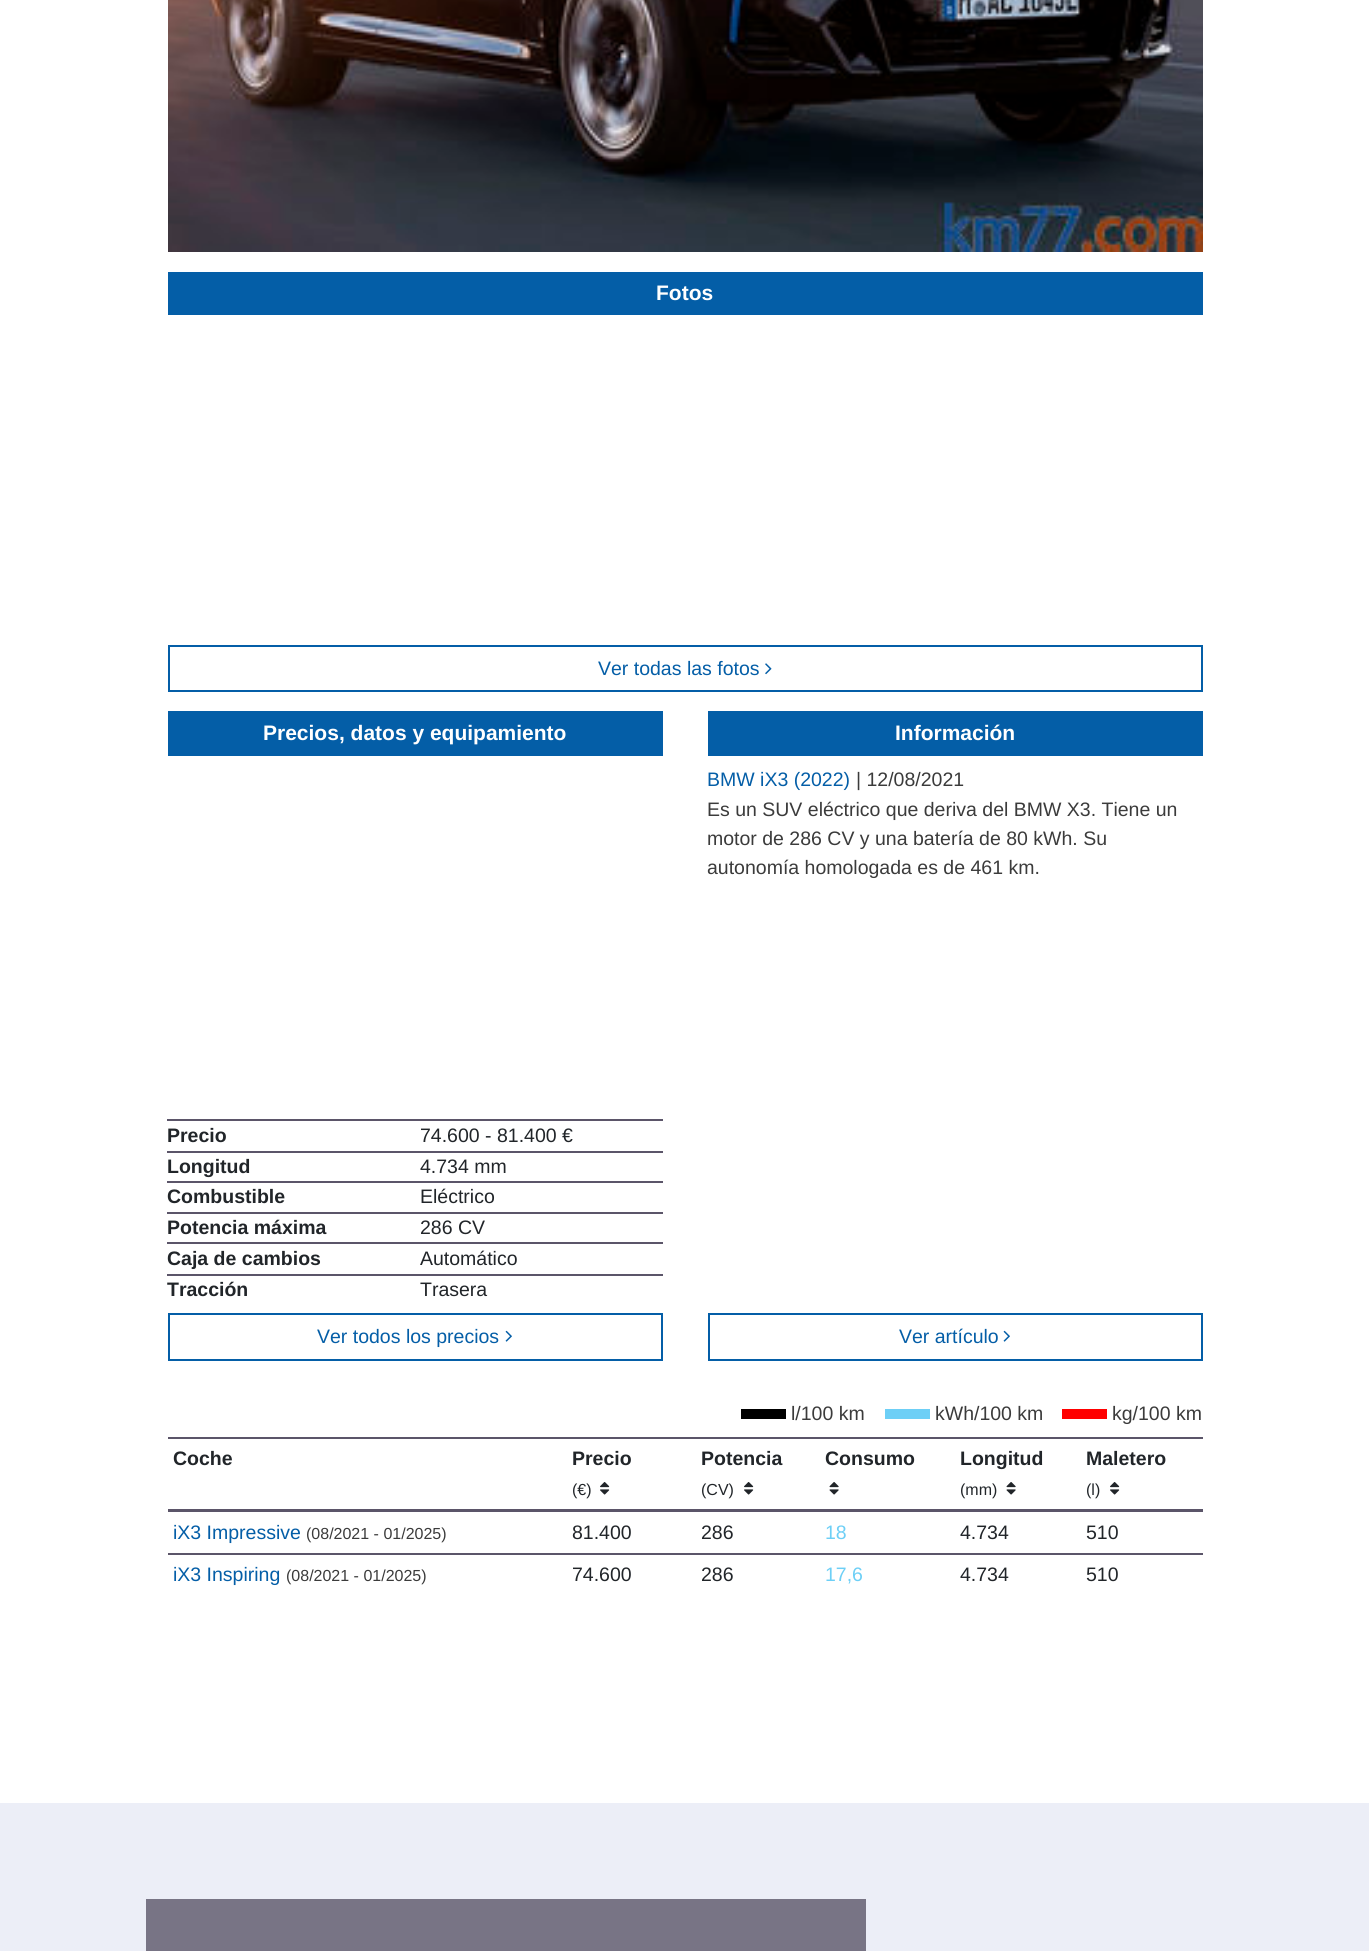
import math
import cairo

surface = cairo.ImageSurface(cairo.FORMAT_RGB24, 1369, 1951)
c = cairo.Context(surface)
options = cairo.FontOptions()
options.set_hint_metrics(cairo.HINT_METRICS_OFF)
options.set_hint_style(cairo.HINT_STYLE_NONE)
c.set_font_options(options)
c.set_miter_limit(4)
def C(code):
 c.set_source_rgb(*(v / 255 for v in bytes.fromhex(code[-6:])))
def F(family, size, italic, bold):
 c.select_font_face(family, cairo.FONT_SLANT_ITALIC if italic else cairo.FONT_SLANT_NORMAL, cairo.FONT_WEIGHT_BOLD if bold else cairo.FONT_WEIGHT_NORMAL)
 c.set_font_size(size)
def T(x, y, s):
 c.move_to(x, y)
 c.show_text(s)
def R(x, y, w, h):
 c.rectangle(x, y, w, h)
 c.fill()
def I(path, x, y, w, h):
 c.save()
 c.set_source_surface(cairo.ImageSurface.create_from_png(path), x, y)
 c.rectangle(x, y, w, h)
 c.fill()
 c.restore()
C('ffffff')
c.paint()
I('1.png',168,0,1035,252)
C('045ea7')
R(168,272,1035,43)
F('Liberation Sans',21,0,1)
C('ffffff')
T(656,300,'Fotos')
c.rectangle(169,646,1033,45)
C('045ea7')
c.stroke()
F('Liberation Sans',19.5,0,0)
T(598,675,'Ver todas las fotos')
I('2.png',765,663,7,12)
R(168,711,495,45)
F('Liberation Sans',21,0,1)
C('ffffff')
T(263,740,'Precios, datos y equipamiento')
F('Liberation Sans',19.5,0,1)
C('212529')
T(167,1142,'Precio')
C('5b5569')
R(167,1119,496,2)
F('Liberation Sans',19.5,0,0)
C('212529')
T(420,1142,'74.600 - 81.400 €')
F('Liberation Sans',19.5,0,1)
T(167,1173,'Longitud')
C('5b5569')
R(167,1151,496,2)
F('Liberation Sans',19.5,0,0)
C('212529')
T(420,1173,'4.734 mm')
F('Liberation Sans',19.5,0,1)
T(167,1203,'Combustible')
C('5b5569')
R(167,1181,496,2)
F('Liberation Sans',19.5,0,0)
C('212529')
T(420,1203,'Eléctrico')
F('Liberation Sans',19.5,0,1)
T(167,1234,'Potencia máxima')
C('5b5569')
R(167,1212,496,2)
F('Liberation Sans',19.5,0,0)
C('212529')
T(420,1234,'286 CV')
F('Liberation Sans',19.5,0,1)
T(167,1265,'Caja de cambios')
C('5b5569')
R(167,1242,496,2)
F('Liberation Sans',19.5,0,0)
C('212529')
T(420,1265,'Automático')
F('Liberation Sans',19.5,0,1)
T(167,1296,'Tracción')
C('5b5569')
R(167,1274,496,2)
F('Liberation Sans',19.5,0,0)
C('212529')
T(420,1296,'Trasera')
c.rectangle(169,1314,493,46)
C('045ea7')
c.stroke()
T(317,1343,'Ver todos los precios')
I('3.png',505,1330,7,12)
R(708,711,495,45)
F('Liberation Sans',21,0,1)
C('ffffff')
T(895,740,'Información')
F('Liberation Sans',19.5,0,0)
C('045ea7')
T(707,786,'BMW iX3 (2022)')
C('3b3b3b')
T(856,786,'| 12/08/2021')
T(707,816,'Es un SUV eléctrico que deriva del BMW X3. Tiene un')
T(707,845,'motor de 286 CV y una batería de 80 kWh. Su')
T(707,874,'autonomía homologada es de 461 km.')
c.rectangle(709,1314,493,46)
C('045ea7')
c.stroke()
T(899,1343,'Ver artículo')
I('3.png',1003,1330,7,12)
C('000000')
R(741,1409,45,10)
C('3b3b3b')
T(791,1420,'l/100 km')
C('6dcff6')
R(885,1409,45,10)
C('3b3b3b')
T(935,1420,'kWh/100 km')
C('ff0000')
R(1062,1409,45,10)
C('3b3b3b')
T(1112,1420,'kg/100 km')
F('Liberation Sans',19.5,0,1)
C('212529')
T(173,1465,'Coche')
T(572,1465,'Precio')
F('Liberation Sans',16,0,0)
T(572,1495,'(€)')
I('4.png',600,1482,10,13)
F('Liberation Sans',19.5,0,1)
T(701,1465,'Potencia')
F('Liberation Sans',16,0,0)
T(701,1495,'(CV)')
I('4.png',744,1482,10,13)
F('Liberation Sans',19.5,0,1)
T(825,1465,'Consumo')
I('5.png',829,1482,10,13)
T(960,1465,'Longitud')
F('Liberation Sans',16,0,0)
T(960,1495,'(mm)')
I('5.png',1006,1482,10,13)
C('5b5569')
R(168,1437,1035,2)
R(168,1509,1035,3)
F('Liberation Sans',19.5,0,1)
C('212529')
T(1086,1465,'Maletero')
F('Liberation Sans',16,0,0)
T(1086,1495,'(l)')
I('4.png',1110,1482,10,13)
F('Liberation Sans',19.5,0,0)
C('045ea7')
T(173,1539,'iX3 Impressive')
F('Liberation Sans',16,0,0)
C('3b3b3b')
T(306,1539,'(08/2021 - 01/2025)')
F('Liberation Sans',19.5,0,0)
C('212529')
T(572,1539,'81.400')
T(701,1539,'286')
C('6dcff6')
T(825,1539,'18')
C('212529')
T(960,1539,'4.734')
T(1086,1539,'510')
C('045ea7')
T(173,1581,'iX3 Inspiring')
F('Liberation Sans',16,0,0)
C('3b3b3b')
T(286,1581,'(08/2021 - 01/2025)')
F('Liberation Sans',19.5,0,0)
C('212529')
T(572,1581,'74.600')
T(701,1581,'286')
C('6dcff6')
T(825,1581,'17,6')
C('212529')
T(960,1581,'4.734')
C('5b5569')
R(168,1553,1035,2)
C('212529')
T(1086,1581,'510')
C('eceef7')
R(0,1803,1369,148)
C('787485')
R(146,1899,720,52)
surface.write_to_png('o.png')
